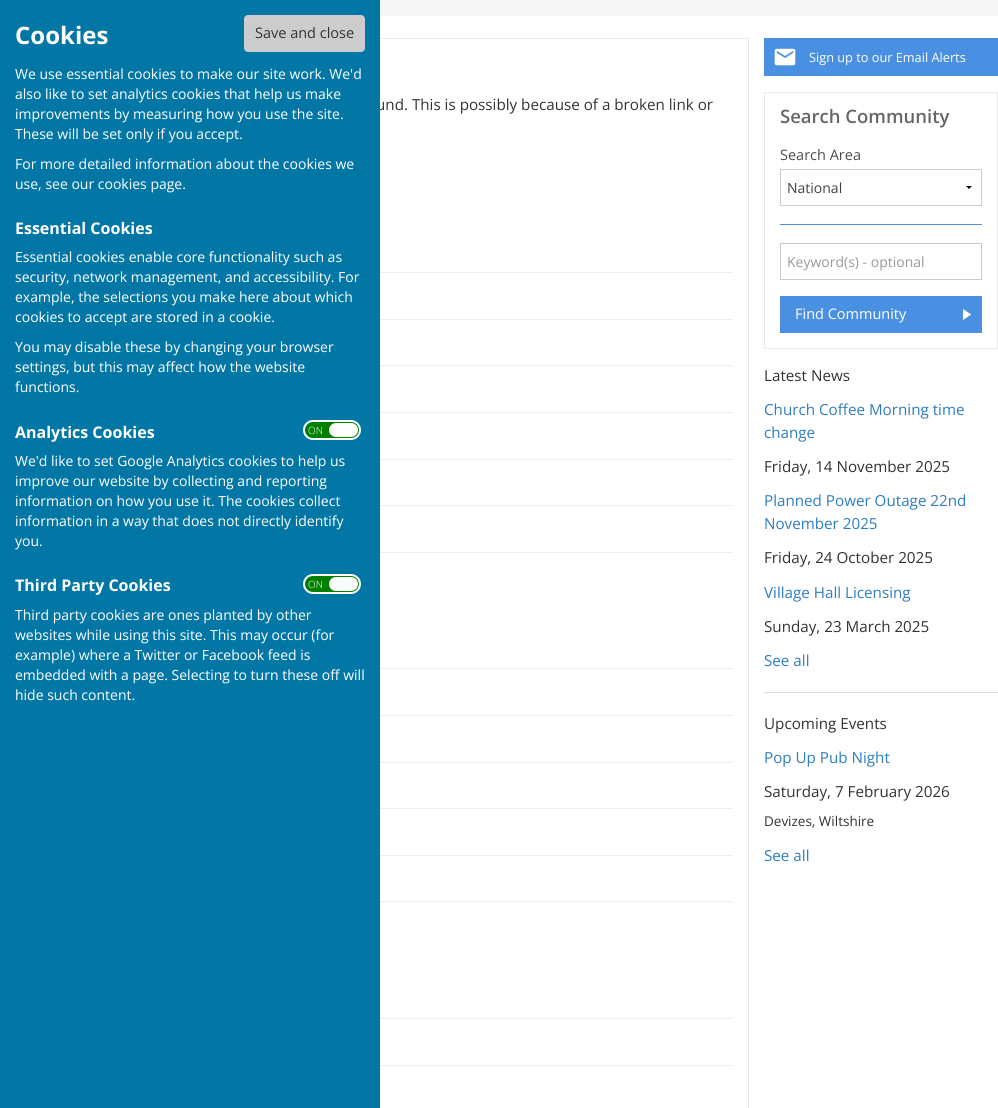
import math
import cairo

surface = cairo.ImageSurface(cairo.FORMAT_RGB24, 998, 1108)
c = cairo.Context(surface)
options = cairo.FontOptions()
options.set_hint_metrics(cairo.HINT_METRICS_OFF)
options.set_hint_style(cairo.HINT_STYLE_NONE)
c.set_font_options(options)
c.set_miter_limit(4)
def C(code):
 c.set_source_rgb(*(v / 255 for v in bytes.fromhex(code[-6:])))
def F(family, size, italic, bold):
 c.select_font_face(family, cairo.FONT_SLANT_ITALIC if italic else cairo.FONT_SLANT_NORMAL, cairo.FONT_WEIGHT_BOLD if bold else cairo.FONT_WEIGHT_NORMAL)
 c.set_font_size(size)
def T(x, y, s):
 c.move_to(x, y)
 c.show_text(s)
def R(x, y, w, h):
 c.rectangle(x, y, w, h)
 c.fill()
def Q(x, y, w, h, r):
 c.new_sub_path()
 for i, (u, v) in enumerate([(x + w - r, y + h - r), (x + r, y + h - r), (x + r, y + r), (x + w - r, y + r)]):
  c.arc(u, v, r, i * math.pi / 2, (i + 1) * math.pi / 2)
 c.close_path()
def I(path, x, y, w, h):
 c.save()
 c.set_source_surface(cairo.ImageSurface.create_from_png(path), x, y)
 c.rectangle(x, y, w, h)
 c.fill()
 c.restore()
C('f6f6f6')
c.paint()
C('ffffff')
R(380,16,618,1092)
c.rectangle(.5,38.5,748,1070)
C('eaeaea')
c.set_line_width(1)
c.stroke()
F('Open Sans',15.2,0,0)
C('333333')
T(376,110,'und. This is possibly because of a broken link or')
C('0276a5')
R(0,0,380,1108)
F('Open Sans',24,0,1)
C('ffffff')
T(15,44,'Cookies')
C('cccccc')
Q(244,15,121,37,4)
c.fill()
F('Open Sans',14.5,0,0)
C('333333')
T(255,38,'Save and close')
F('Open Sans',14,0,0)
C('ffffff')
T(15,79,'We use essential cookies to make our site work. We\'d')
T(15,99,'also like to set analytics cookies that help us make')
T(15,119,'improvements by measuring how you use the site.')
T(15,139,'These will be set only if you accept.')
T(15,169,'For more detailed information about the cookies we')
T(15,189,'use, see our cookies page.')
F('Open Sans',16,0,1)
T(15,234,'Essential Cookies')
F('Open Sans',14,0,0)
T(15,262,'Essential cookies enable core functionality such as')
T(15,282,'security, network management, and accessibility. For')
T(15,302,'example, the selections you make here about which')
T(15,322,'cookies to accept are stored in a cookie.')
T(15,352,'You may disable these by changing your browser')
T(15,372,'settings, but this may affect how the website')
T(15,392,'functions.')
F('Open Sans',16,0,1)
T(15,438,'Analytics Cookies')
C('008000')
Q(304,421,56,18,9)
c.fill_preserve()
C('ffffff')
c.set_line_width(2)
c.stroke()
F('Open Sans Light',10,0,0)
T(308,434,'ON')
Q(329,423,29,14,7)
c.fill()
F('Open Sans',14,0,0)
T(15,466,'We\'d like to set Google Analytics cookies to help us')
T(15,486,'improve our website by collecting and reporting')
T(15,506,'information on how you use it. The cookies collect')
T(15,526,'information in a way that does not directly identify')
T(15,546,'you.')
F('Open Sans',16,0,1)
T(15,591,'Third Party Cookies')
C('008000')
Q(304,575,56,18,9)
c.fill_preserve()
C('ffffff')
c.stroke()
F('Open Sans Light',10,0,0)
T(308,588,'ON')
Q(329,577,29,14,7)
c.fill()
F('Open Sans',14,0,0)
T(15,620,'Third party cookies are ones planted by other')
T(15,640,'websites while using this site. This may occur (for')
T(15,660,'example) where a Twitter or Facebook feed is')
T(15,680,'embedded with a page. Selecting to turn these off will')
T(15,700,'hide such content.')
C('eeeeee')
R(380,272,353,1)
R(380,319,353,1)
R(380,365,353,1)
R(380,412,353,1)
R(380,459,353,1)
R(380,505,353,1)
R(380,552,353,1)
R(380,668,353,1)
R(380,715,353,1)
R(380,762,353,1)
R(380,808,353,1)
R(380,855,353,1)
R(380,901,353,1)
R(380,1018,353,1)
R(380,1065,353,1)
C('4a90e2')
R(764,38,234,38)
I('1.png',774,48,22,18)
F('Open Sans',12.75,0,0)
C('ffffff')
T(809,62,'Sign up to our Email Alerts')
c.rectangle(764.5,92.5,233,256)
C('eaeaea')
c.set_line_width(1)
c.stroke()
F('Open Sans SemiBold',18.5,0,0)
C('666666')
T(780,123,'Search Community')
C('4a90e2')
R(780,224,202,1)
F('Open Sans',14.5,0,0)
C('4d4d4d')
T(780,160,'Search Area')
C('000000')
c.new_path()
c.move_to(972,186)
c.line_to(969,189)
c.line_to(966,186)
c.close_path()
c.fill()
c.rectangle(780.5,169.5,201,36)
C('cccccc')
c.stroke()
F('Open Sans',14,0,0)
C('404040')
T(787,193,'National')
c.rectangle(780.5,243.5,201,36)
C('cccccc')
c.stroke()
C('999999')
T(787,267,'Keyword(s) - optional')
C('4a90e2')
R(780,296,202,37)
I('2.png',963,309,8,11)
F('Open Sans',14.5,0,0)
C('ffffff')
T(795,319,'Find Community')
F('Open Sans',15.2,0,0)
C('333333')
T(764,381,'Latest News')
C('2d7dc2')
T(764,415,'Church Coffee Morning time')
T(764,438,'change')
C('333333')
T(764,472,'Friday, 14 November 2025')
C('2d7dc2')
T(764,506,'Planned Power Outage 22nd')
T(764,529,'November 2025')
C('333333')
T(764,563,'Friday, 24 October 2025')
C('2d7dc2')
T(764,598,'Village Hall Licensing')
C('333333')
T(764,632,'Sunday, 23 March 2025')
C('2d7dc2')
T(764,666,'See all')
C('dddddd')
R(764,692,234,1)
C('333333')
T(764,729,'Upcoming Events')
C('2d7dc2')
T(764,763,'Pop Up Pub Night')
C('333333')
T(764,797,'Saturday, 7 February 2026')
F('Open Sans',13.5,0,0)
T(764,826,'Devizes, Wiltshire')
F('Open Sans',15.2,0,0)
C('2d7dc2')
T(764,861,'See all')
surface.write_to_png('o.png')
